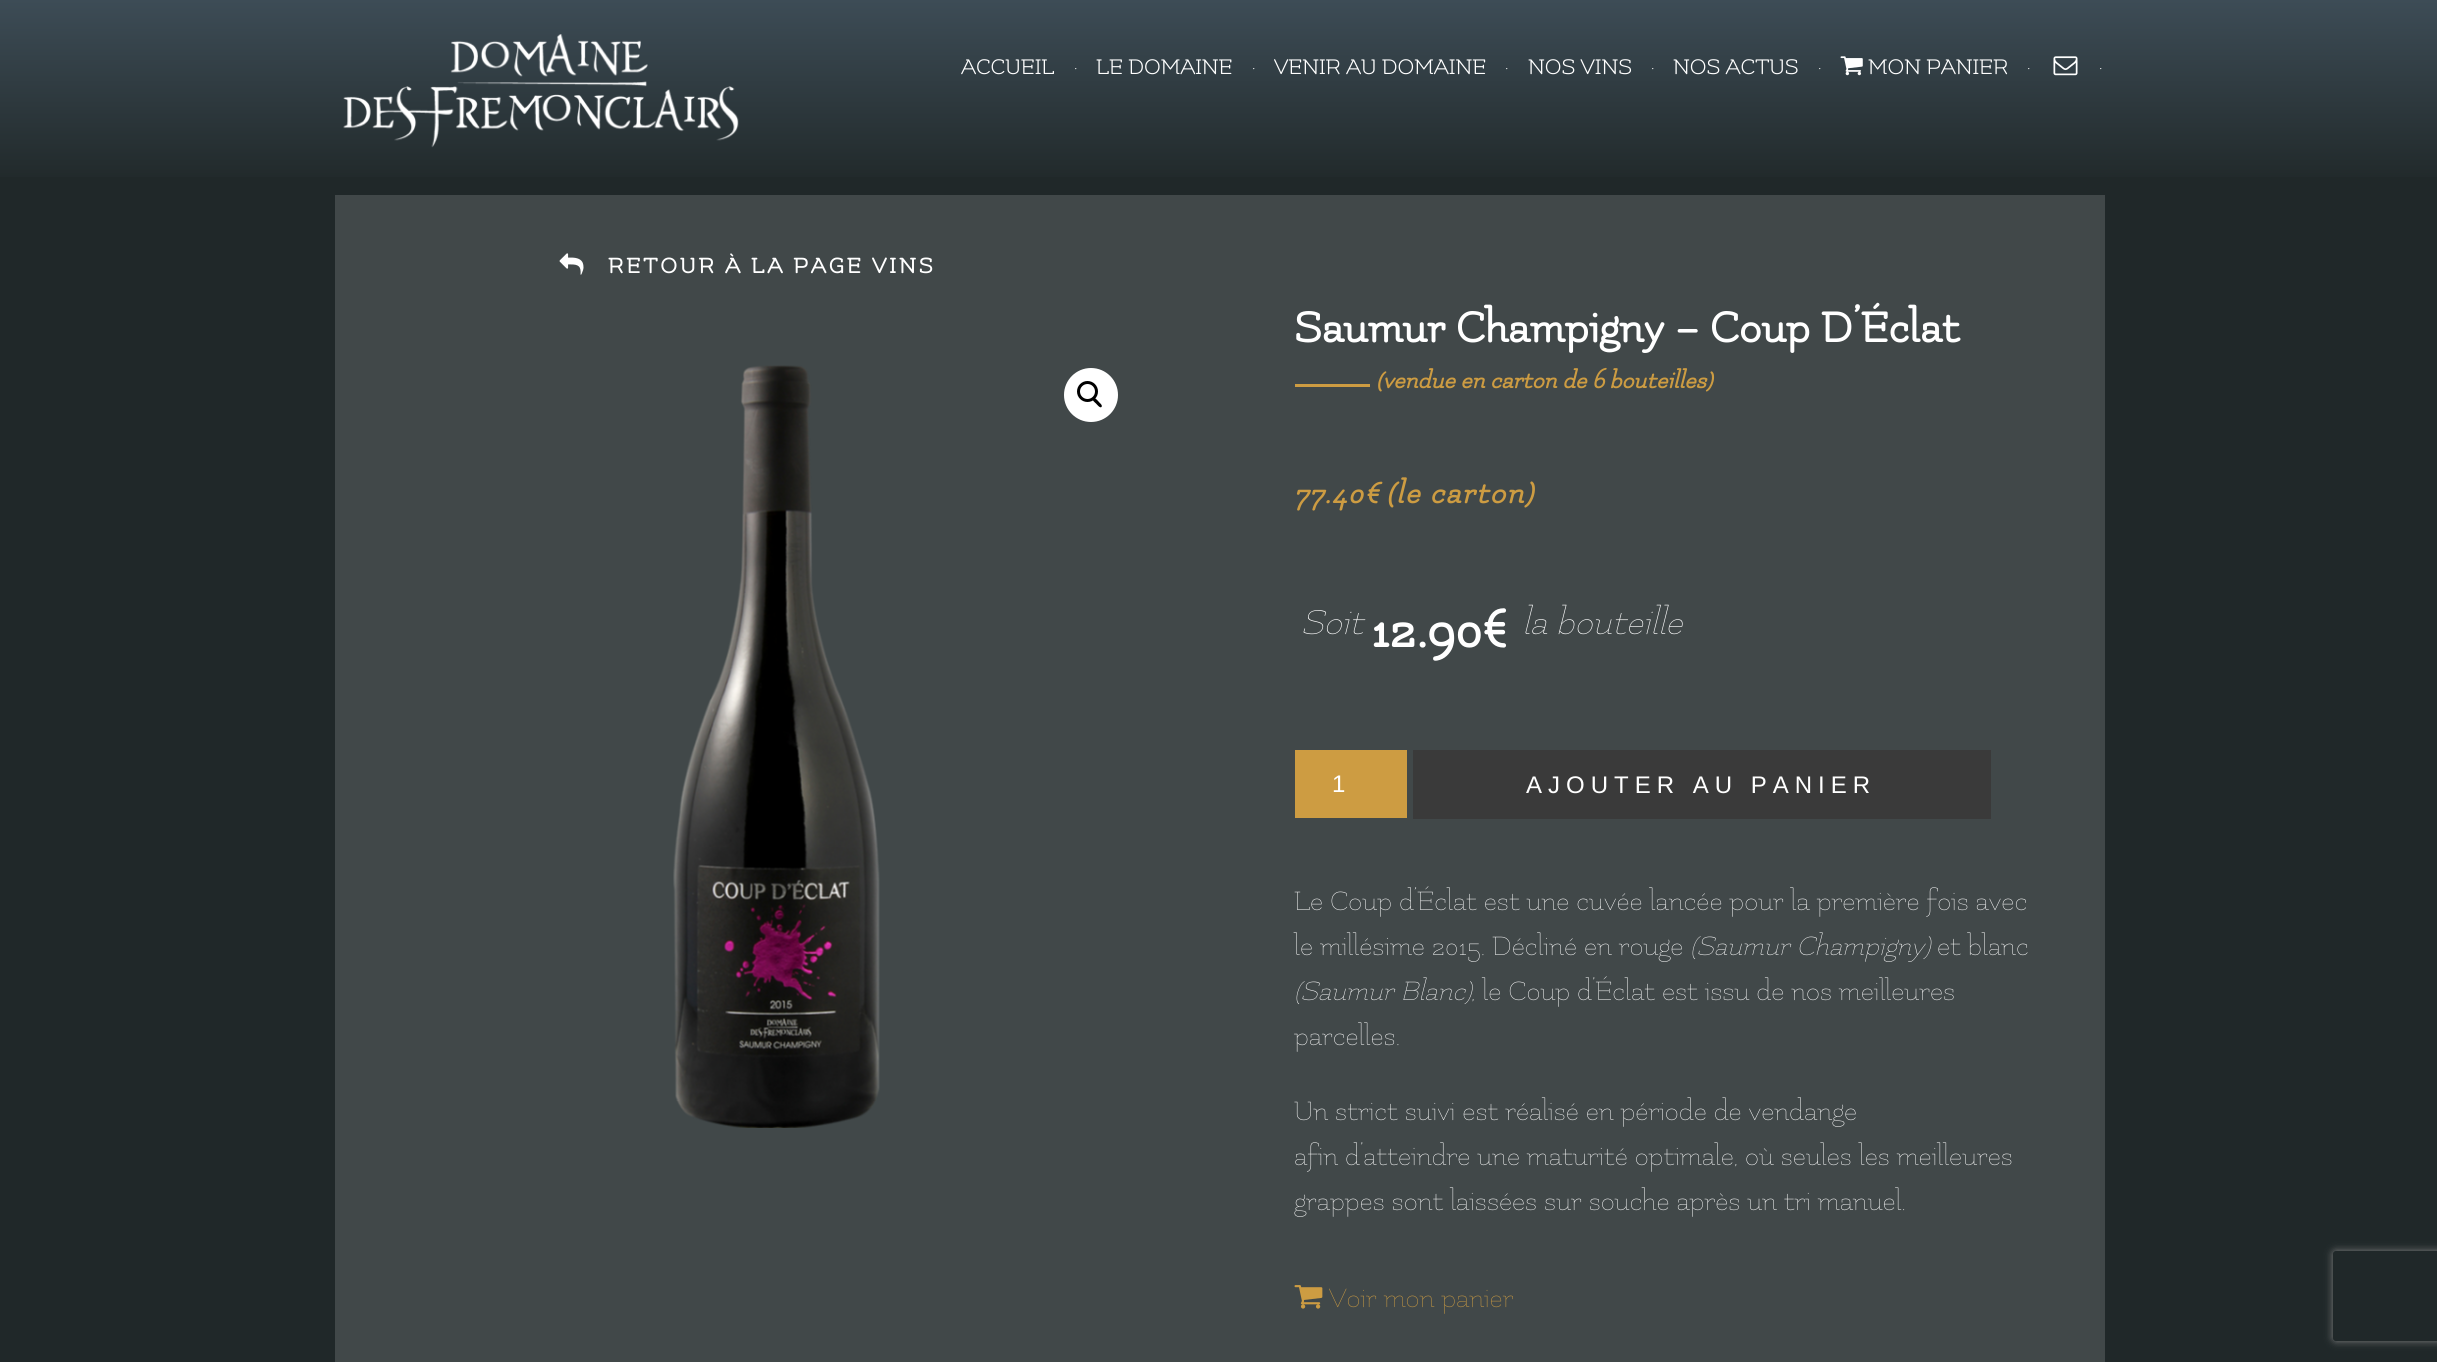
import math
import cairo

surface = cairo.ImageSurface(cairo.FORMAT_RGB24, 2437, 1362)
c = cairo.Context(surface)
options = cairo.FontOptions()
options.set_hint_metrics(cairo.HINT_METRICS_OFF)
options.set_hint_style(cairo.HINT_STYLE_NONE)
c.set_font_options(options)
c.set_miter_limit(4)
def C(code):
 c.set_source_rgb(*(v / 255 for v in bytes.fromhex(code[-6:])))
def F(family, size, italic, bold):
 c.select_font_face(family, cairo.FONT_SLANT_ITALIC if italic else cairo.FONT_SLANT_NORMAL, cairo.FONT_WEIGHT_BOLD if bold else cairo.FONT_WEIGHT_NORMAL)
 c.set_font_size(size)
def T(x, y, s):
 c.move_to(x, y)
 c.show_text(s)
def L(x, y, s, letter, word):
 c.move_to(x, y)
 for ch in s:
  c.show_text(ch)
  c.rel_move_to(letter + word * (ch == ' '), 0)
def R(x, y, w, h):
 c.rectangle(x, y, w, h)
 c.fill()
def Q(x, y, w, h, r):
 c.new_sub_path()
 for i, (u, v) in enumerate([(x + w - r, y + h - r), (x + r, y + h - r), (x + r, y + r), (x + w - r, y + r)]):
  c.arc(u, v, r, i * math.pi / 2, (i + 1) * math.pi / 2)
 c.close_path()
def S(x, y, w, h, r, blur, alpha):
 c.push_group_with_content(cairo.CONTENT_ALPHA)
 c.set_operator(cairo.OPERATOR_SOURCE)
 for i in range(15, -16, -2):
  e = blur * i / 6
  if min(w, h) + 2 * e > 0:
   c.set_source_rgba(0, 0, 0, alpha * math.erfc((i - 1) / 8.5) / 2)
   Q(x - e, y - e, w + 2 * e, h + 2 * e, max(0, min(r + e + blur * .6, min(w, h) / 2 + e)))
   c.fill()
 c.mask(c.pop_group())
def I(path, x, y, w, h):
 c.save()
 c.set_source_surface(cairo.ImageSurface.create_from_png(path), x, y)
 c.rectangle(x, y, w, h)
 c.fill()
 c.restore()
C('202829')
c.paint()
gradient = cairo.LinearGradient(1219,0,1219,183)
gradient.add_color_stop_rgba(0,0.239,0.298,0.337,1)
gradient.add_color_stop_rgba(1,0.129,0.161,0.165,1)
c.set_source(gradient)
R(0,0,2437,177)
I('1.png',343,34,396,114)
F('Flamenco',24,0,0)
C('ffffff')
T(961,74,'ACCUEIL')
F('Flamenco Light',38,0,0)
T(1073,69,'.')
F('Flamenco',24,0,0)
T(1096,74,'LE DOMAINE')
F('Flamenco Light',38,0,0)
T(1251,69,'.')
F('Flamenco',24,0,0)
T(1274,74,'VENIR AU DOMAINE')
F('Flamenco Light',38,0,0)
T(1504,69,'.')
F('Flamenco',24,0,0)
T(1528,74,'NOS VINS')
F('Flamenco Light',38,0,0)
T(1650,69,'.')
F('Flamenco',24,0,0)
T(1673,74,'NOS ACTUS')
F('Flamenco Light',38,0,0)
T(1817,69,'.')
I('2.png',1840,56,23,20)
F('Flamenco',24,0,0)
T(1868,74,'MON PANIER')
F('Flamenco Light',38,0,0)
T(2026,69,'.')
I('3.png',2053,56,25,20)
T(2098,69,'.')
C('414849')
R(335,195,1770,1167)
I('4.png',559,253,25,22)
F('Flamenco',24,0,1)
C('ffffff')
L(608,273,'RETOUR À LA PAGE VINS',3,0)
I('5.png',673,365,207,763)
c.arc(1091,395,27,0,2 * math.pi)
c.fill()
c.arc(1087.5,391.5,9,0,2 * math.pi)
C('000000')
c.set_line_width(3)
c.stroke()
c.new_path()
c.move_to(1093,398.5)
c.curve_to(1094.5,396.5,1097.5,400.5,1098.5,401.5)
c.curve_to(1099,402.5,1103,405,1101.5,407)
c.curve_to(1100,408.5,1097,404.5,1096,403.5)
c.curve_to(1095.5,403,1091.5,400,1093,398.5)
c.close_path()
c.fill()
F('Flamenco',48,0,1)
C('ffffff')
T(1294,342,'Saumur Champigny – Coup D’Éclat')
C('cd9c42')
R(1295,384,75,3)
F('Flamenco',25.5,1,1)
T(1376,388,'(vendue en carton de 6 bouteilles)')
F('Flamenco',33,1,1)
L(1294,503,'77.40€',1.5,0)
L(1386,503,'(le carton)',1.5,0)
F('Flamenco Light',39,1,0)
C('ffffff')
T(1301,634,'Soit')
F('Flamenco',60,0,1)
T(1371,647,'12.90€')
F('Flamenco Light',39,1,0)
T(1522,634,'la bouteille')
C('cd9c42')
R(1295,750,112,68)
F('Liberation Sans',24,0,0)
C('ffffff')
T(1332,792,'1')
C('3a3a3a')
R(1413,750,578,69)
C('ffffff')
L(1526,793,'AJOUTER AU PANIER',6,0)
F('Flamenco Light',30,0,0)
T(1294,910,'Le Coup d’Éclat est une cuvée lancée pour la première fois avec')
T(1294,955,'le millésime 2015. Décliné en rouge')
F('Flamenco Light',30,1,0)
T(1690,955,'(Saumur Champigny)')
F('Flamenco Light',30,0,0)
T(1937,955,'et blanc')
F('Flamenco Light',30,1,0)
T(1294,1000,'(Saumur Blanc)')
F('Flamenco Light',30,0,0)
T(1471,1000,', le Coup d’Éclat est issu de nos meilleures')
T(1294,1045,'parcelles.')
T(1294,1120,'Un strict suivi est réalisé en période de vendange')
T(1294,1165,'afin d’atteindre une maturité optimale, où seules les meilleures')
T(1294,1210,'grappes sont laissées sur souche après un tri manuel.')
I('6.png',1294,1285,29,24)
C('cd9c42')
T(1329,1307,'Voir mon panier')
c.save()
c.set_fill_rule(cairo.FILL_RULE_EVEN_ODD)
c.new_path()
c.move_to(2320,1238)
c.line_to(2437,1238)
c.line_to(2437,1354)
c.line_to(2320,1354)
c.close_path()
c.move_to(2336,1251)
c.line_to(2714,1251)
c.curve_to(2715.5,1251,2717,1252.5,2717,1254)
c.line_to(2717,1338)
c.curve_to(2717,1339.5,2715.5,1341,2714,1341)
c.line_to(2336,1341)
c.curve_to(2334.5,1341,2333,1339.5,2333,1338)
c.line_to(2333,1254)
c.curve_to(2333,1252.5,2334.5,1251,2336,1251)
c.close_path()
c.clip()
C('808080')
S(2333,1251,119,90,3,4,1)
c.restore()
surface.write_to_png('o.png')
